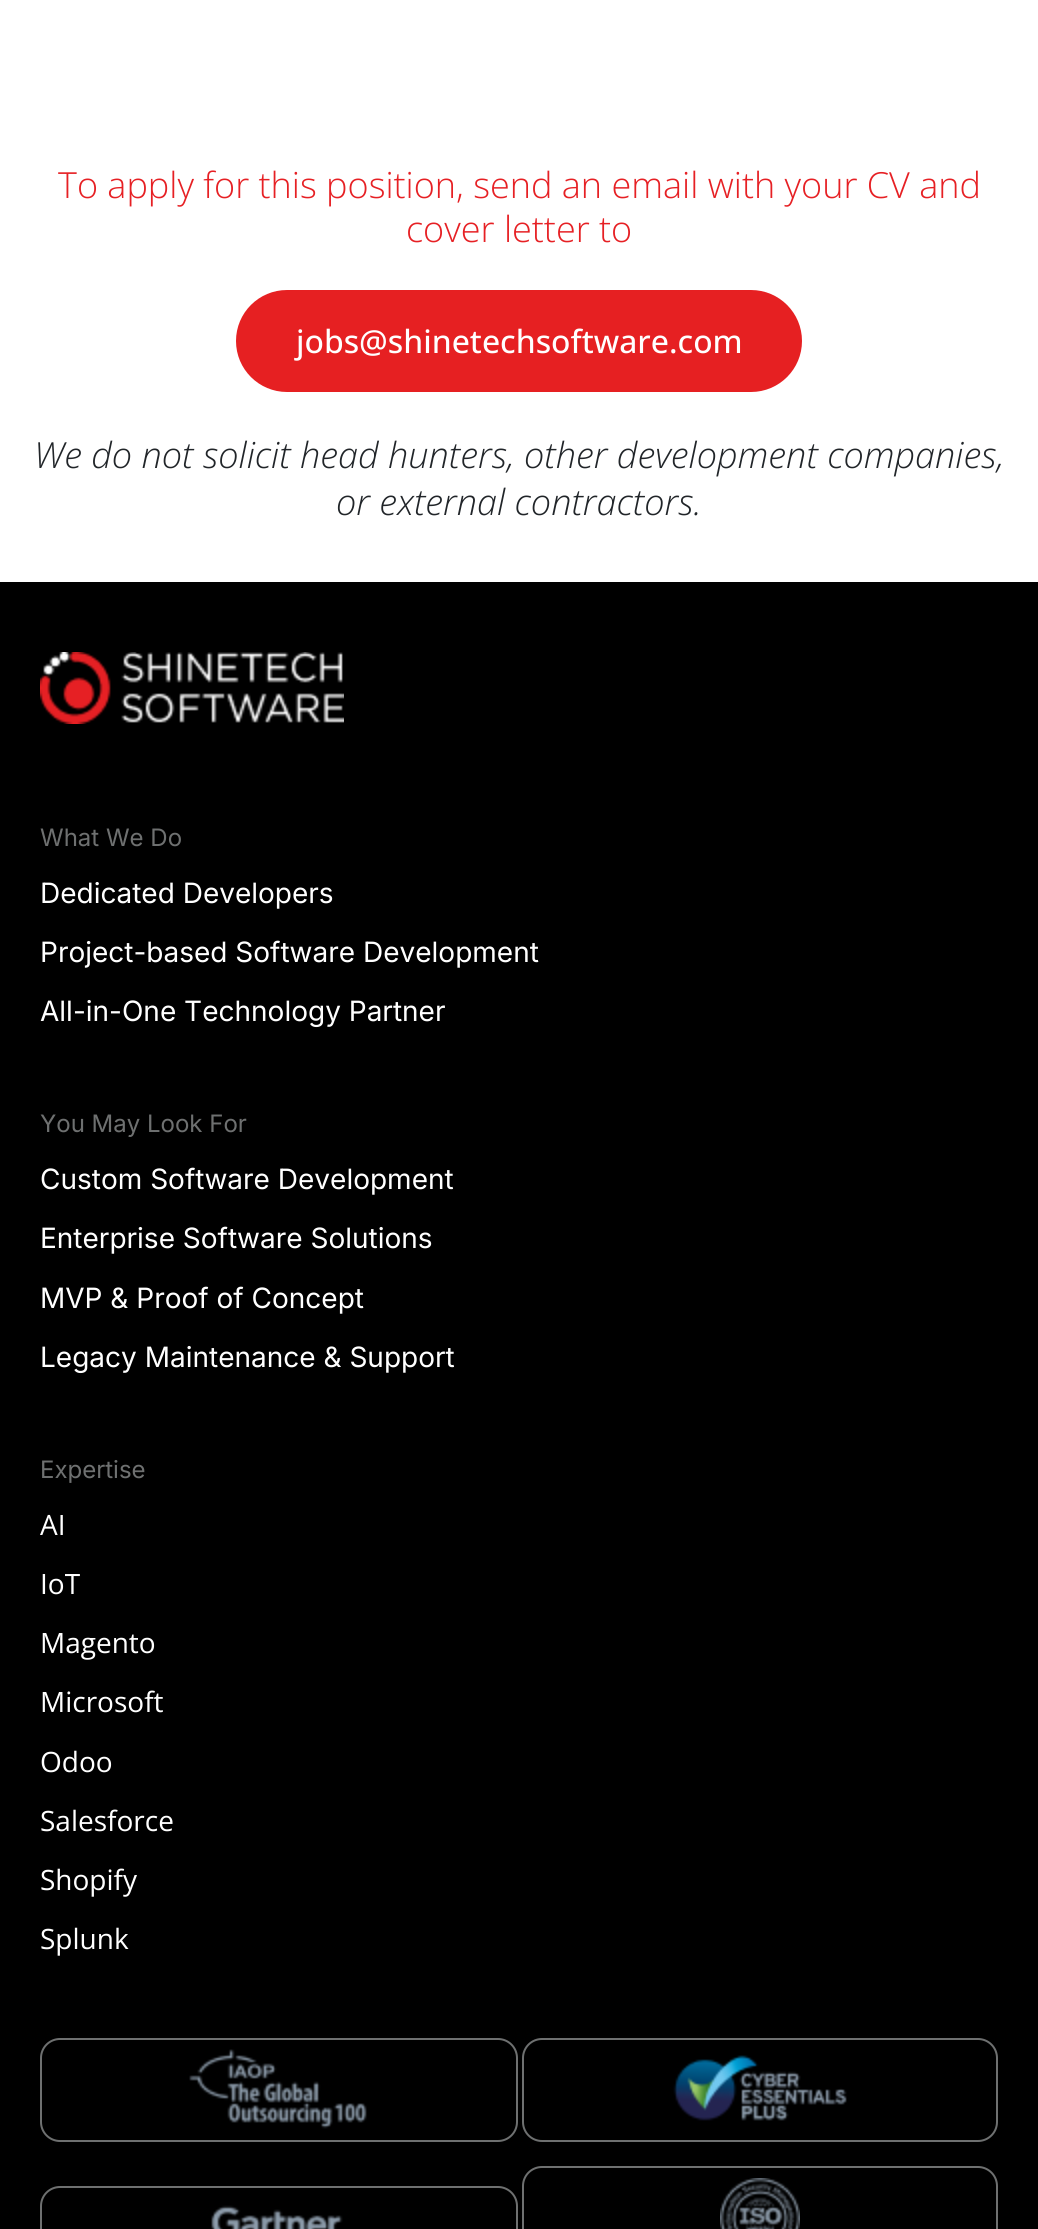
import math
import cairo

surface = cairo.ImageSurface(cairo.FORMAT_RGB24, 1038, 2229)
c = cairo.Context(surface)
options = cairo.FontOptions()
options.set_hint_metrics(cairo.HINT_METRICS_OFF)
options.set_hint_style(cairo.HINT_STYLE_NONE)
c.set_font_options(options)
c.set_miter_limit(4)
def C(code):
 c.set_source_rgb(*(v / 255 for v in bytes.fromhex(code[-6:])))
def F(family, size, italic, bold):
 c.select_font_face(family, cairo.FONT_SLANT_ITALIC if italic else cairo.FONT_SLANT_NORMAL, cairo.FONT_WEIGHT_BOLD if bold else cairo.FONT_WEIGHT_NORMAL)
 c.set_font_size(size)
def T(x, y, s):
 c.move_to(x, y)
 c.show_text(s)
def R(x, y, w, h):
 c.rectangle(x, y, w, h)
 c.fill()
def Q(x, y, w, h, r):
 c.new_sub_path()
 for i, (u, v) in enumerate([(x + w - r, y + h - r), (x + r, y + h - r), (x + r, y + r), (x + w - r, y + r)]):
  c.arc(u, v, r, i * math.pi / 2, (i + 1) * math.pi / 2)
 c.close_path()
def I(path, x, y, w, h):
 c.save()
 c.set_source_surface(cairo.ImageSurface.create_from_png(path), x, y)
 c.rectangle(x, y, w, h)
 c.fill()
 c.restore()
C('ffffff')
c.paint()
F('Open Sans Light',36,0,0)
C('e62024')
T(58,198,'To apply for this position, send an email with your CV and')
T(406,242,'cover letter to')
C('e62022')
Q(236,290,566,102,51)
c.fill()
F('Open Sans Medium',32,0,0)
C('ffffff')
T(296,353,'jobs@shinetechsoftware.com')
F('Open Sans Light',36,1,0)
C('212529')
T(34,468,'We do not solicit head hunters, other development companies,')
T(336,515,'or external contractors.')
C('000000')
R(0,582,1038,1647)
I('1.png',40,652,304,72)
F('Inter',24,0,0)
C('6e7070')
T(40,846,'What We Do')
F('Inter',28,0,0)
C('ffffff')
T(40,903,'Dedicated Developers')
T(40,962,'Project-based Software Development')
T(40,1021,'All-in-One Technology Partner')
F('Inter',24,0,0)
C('6e7070')
T(40,1132,'You May Look For')
F('Inter',28,0,0)
C('ffffff')
T(40,1189,'Custom Software Development')
T(40,1248,'Enterprise Software Solutions')
T(40,1308,'MVP & Proof of Concept')
T(40,1367,'Legacy Maintenance & Support')
F('Inter',24,0,0)
C('6e7070')
T(40,1478,'Expertise')
F('Open Sans',28,0,0)
C('ffffff')
T(40,1535,'AI')
T(40,1594,'IoT')
T(40,1653,'Magento')
T(40,1712,'Microsoft')
T(40,1772,'Odoo')
T(40,1831,'Salesforce')
T(40,1890,'Shopify')
T(40,1949,'Splunk')
Q(41,2039,476,102,19)
C('6e7070')
c.stroke()
I('2.png',189,2049,178,80)
Q(523,2039,474,102,19)
c.stroke()
I('3.png',673,2055,174,66)
Q(41,2187,476,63,19)
c.stroke()
I('4.png',211,2205,132,24)
Q(523,2167,474,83,19)
c.stroke()
I('5.png',720,2178,80,51)
surface.write_to_png('o.png')
